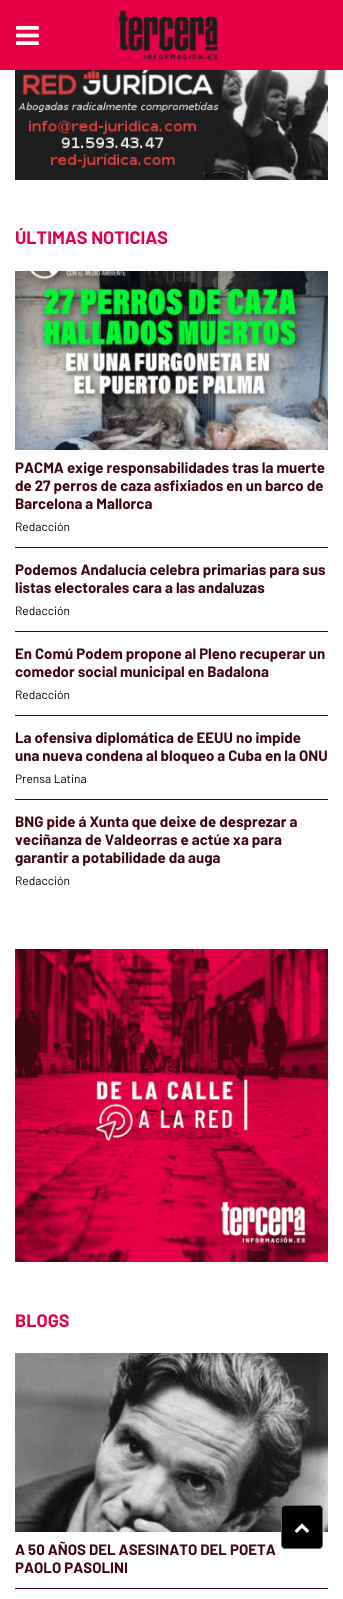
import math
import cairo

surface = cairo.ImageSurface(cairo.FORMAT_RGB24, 343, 1599)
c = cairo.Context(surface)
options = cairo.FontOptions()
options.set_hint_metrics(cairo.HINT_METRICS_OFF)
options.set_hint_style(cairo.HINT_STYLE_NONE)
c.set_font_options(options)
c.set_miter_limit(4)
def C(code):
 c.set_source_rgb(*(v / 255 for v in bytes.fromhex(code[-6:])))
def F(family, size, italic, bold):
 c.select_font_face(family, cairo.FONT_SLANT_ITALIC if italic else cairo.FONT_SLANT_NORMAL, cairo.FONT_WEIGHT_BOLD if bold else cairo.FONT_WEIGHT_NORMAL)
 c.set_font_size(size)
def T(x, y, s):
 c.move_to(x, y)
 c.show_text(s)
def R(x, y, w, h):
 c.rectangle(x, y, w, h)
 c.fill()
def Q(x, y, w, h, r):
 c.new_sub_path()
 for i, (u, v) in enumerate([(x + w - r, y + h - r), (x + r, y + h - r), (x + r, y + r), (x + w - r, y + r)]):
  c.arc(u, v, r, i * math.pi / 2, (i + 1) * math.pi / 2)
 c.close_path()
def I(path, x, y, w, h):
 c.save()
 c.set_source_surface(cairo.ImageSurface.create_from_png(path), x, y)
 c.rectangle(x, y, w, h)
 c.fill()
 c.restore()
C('ffffff')
c.paint()
C('e50046')
R(0,0,343,70)
I('1.png',16,25,23,20)
I('2.png',118,10,100,50)
I('3.png',15,70,313,110)
F('Barlow',18,0,1)
T(15,244,'ÚLTIMAS NOTICIAS')
I('4.png',15,271,313,179)
F('Barlow',15,0,1)
C('3f0612')
T(15,473,'PACMA exige responsabilidades tras la muerte')
T(15,491,'de 27 perros de caza asfixiados en un barco de')
T(15,509,'Barcelona a Mallorca')
F('Barlow',12,0,0)
C('000000')
T(15,531,'Redacción')
C('3f0612')
R(15,547,313,1)
F('Barlow',15,0,1)
T(15,575,'Podemos Andalucía celebra primarias para sus')
T(15,593,'listas electorales cara a las andaluzas')
F('Barlow',12,0,0)
C('000000')
T(15,615,'Redacción')
C('3f0612')
R(15,631,313,1)
F('Barlow',15,0,1)
T(15,659,'En Comú Podem propone al Pleno recuperar un')
T(15,677,'comedor social municipal en Badalona')
F('Barlow',12,0,0)
C('000000')
T(15,699,'Redacción')
C('3f0612')
R(15,715,313,1)
F('Barlow',15,0,1)
T(15,743,'La ofensiva diplomática de EEUU no impide')
T(15,761,'una nueva condena al bloqueo a Cuba en la ONU')
F('Barlow',12,0,0)
C('000000')
T(15,783,'Prensa Latina')
C('3f0612')
R(15,799,313,1)
F('Barlow',15,0,1)
T(15,827,'BNG pide á Xunta que deixe de desprezar a')
T(15,845,'veciñanza de Valdeorras e actúe xa para')
T(15,863,'garantir a potabilidade da auga')
F('Barlow',12,0,0)
C('000000')
T(15,885,'Redacción')
I('5.png',15,949,313,313)
F('Barlow',18,0,1)
C('e50046')
T(15,1327,'BLOGS')
I('6.png',15,1353,313,179)
F('Barlow',15,0,1)
C('3f0612')
T(15,1555,'A 50 AÑOS DEL ASESINATO DEL POETA')
T(15,1573,'PAOLO PASOLINI')
R(15,1588,313,1)
C('000000')
Q(281.5,1505.5,41,43,3.5)
c.fill_preserve()
C('666666')
c.set_line_width(1)
c.stroke()
I('7.png',294,1523,16,10)
surface.write_to_png('o.png')
